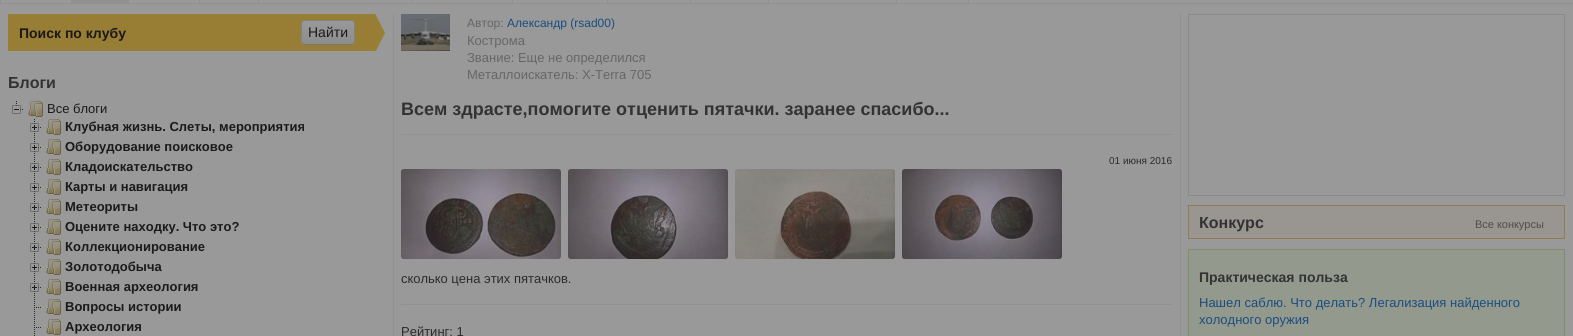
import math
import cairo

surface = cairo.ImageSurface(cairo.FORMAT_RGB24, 1573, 336)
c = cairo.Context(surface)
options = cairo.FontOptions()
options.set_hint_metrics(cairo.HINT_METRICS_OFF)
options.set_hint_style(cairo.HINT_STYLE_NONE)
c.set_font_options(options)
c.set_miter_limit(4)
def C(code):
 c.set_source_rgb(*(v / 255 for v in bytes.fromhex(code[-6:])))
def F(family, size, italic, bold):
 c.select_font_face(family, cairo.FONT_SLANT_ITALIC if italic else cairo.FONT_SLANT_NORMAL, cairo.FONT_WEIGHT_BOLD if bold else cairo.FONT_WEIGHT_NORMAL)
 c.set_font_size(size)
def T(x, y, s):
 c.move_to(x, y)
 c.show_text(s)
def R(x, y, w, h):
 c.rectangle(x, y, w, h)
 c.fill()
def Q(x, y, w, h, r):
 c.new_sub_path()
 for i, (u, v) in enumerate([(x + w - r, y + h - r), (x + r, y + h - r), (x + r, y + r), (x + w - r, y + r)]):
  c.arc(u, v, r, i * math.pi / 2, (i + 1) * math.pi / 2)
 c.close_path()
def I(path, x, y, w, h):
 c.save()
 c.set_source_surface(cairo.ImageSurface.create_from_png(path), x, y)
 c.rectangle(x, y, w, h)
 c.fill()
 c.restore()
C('999999')
c.paint()
C('919191')
R(0,3,1573,1)
R(0,0,1,3)
R(71,0,58,3)
R(199,0,1,3)
R(258,0,1,3)
R(412,0,1,3)
R(512,0,1,3)
R(607,0,1,3)
R(690,0,1,3)
R(768,0,1,3)
R(896,0,1,3)
R(968,0,1,3)
R(1180,14,1,322)
R(393,14,1,322)
C('987d35')
R(8,14,347,37)
F('Liberation Sans',14,0,1)
C('1a1a1a')
T(19,38,'Поиск по клубу')
C('949494')
Q(301,20,54,25,4)
c.fill()
c.save()
Q(301,20,54,25,4)
c.clip()
gradient = cairo.LinearGradient(328,21,328,44)
gradient.add_color_stop_rgba(0,0.6,0.6,0.6,1)
gradient.add_color_stop_rgba(1,0.553,0.553,0.553,1)
c.set_source(gradient)
R(301,21,54,23)
c.restore()
c.new_path()
c.move_to(353.5,43.5)
c.curve_to(353,44,352,44.5,351,44.5)
c.line_to(305,44.5)
c.curve_to(304,44.5,303,44,302.5,43.5)
C('777777')
c.set_line_width(1)
c.stroke()
c.new_path()
c.move_to(302.5,43.5)
c.curve_to(300.5,41,301.5,35,301.5,32.5)
c.curve_to(301.5,20,300,20.5,312.5,20.5)
c.line_to(343.5,20.5)
c.curve_to(356,20.5,354.5,20,354.5,32.5)
c.curve_to(354.5,35,355.5,41,353.5,43.5)
C('808080')
c.stroke()
F('Liberation Sans',14,0,0)
C('1a1a1a')
T(308,37,'Найти')
c.save()
c.rectangle(355,14,30,37)
c.clip()
C('987d35')
c.new_path()
c.move_to(355,92)
c.line_to(355,-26)
c.line_to(385,33)
c.close_path()
c.fill()
c.restore()
F('Liberation Sans',16,0,1)
C('333333')
T(8,88,'Блоги')
I('1.png',12,101,11,13)
I('2.png',28,101,15,16)
F('Liberation Sans',13,0,0)
C('1a1a1a')
T(47,113,'Все блоги')
I('3.png',34,119,1,19)
I('4.png',30,123,11,9)
I('2.png',46,119,15,16)
F('Liberation Sans',13,0,1)
T(65,131,'Клубная жизнь. Слеты, мероприятия')
I('3.png',34,139,1,19)
I('4.png',30,143,11,9)
I('2.png',46,139,15,16)
T(65,151,'Оборудование поисковое')
I('3.png',34,159,1,19)
I('4.png',30,163,11,9)
I('2.png',46,159,15,16)
T(65,171,'Кладоискательство')
I('3.png',34,179,1,19)
I('4.png',30,183,11,9)
I('2.png',46,179,15,16)
T(65,191,'Карты и навигация')
I('3.png',34,199,1,19)
I('4.png',30,203,11,9)
I('2.png',46,199,15,16)
T(65,211,'Метеориты')
I('3.png',34,219,1,19)
I('4.png',30,223,11,9)
I('2.png',46,219,15,16)
T(65,231,'Оцените находку. Что это?')
I('3.png',34,239,1,19)
I('4.png',30,243,11,9)
I('2.png',46,239,15,16)
T(65,251,'Коллекционирование')
I('3.png',34,259,1,19)
I('4.png',30,263,11,9)
I('2.png',46,259,15,16)
T(65,271,'Золотодобыча')
I('3.png',34,279,1,19)
I('4.png',30,283,11,9)
I('2.png',46,279,15,16)
T(65,291,'Военная археология')
I('3.png',34,299,1,19)
I('5.png',36,307,5,1)
I('2.png',46,299,15,16)
T(65,311,'Вопросы истории')
I('6.png',34,319,1,17)
I('5.png',36,327,5,1)
I('2.png',46,319,15,16)
T(65,331,'Археология')
I('7.png',401,14,49,37)
F('Liberation Sans',12,0,0)
C('666666')
T(467,27,'Автор:')
C('1a4d80')
T(507,27,'Александр (rsad00)')
F('Liberation Sans',13,0,0)
C('666666')
T(467,45,'Кострома')
T(467,62,'Звание: Еще не определился')
T(467,79,'Металлоискатель: X-Terra 705')
C('919191')
R(401,134,771,1)
F('Liberation Sans',18,0,1)
C('333333')
T(401,115,'Всем здрасте,помогите отценить пятачки. заранее спасибо...')
F('Liberation Sans',10,0,0)
C('2b2b2b')
T(1109,164,'01 июня 2016')
I('8.png',401,169,160,90)
I('9.png',568,169,160,90)
I('10.png',735,169,160,90)
I('11.png',902,169,160,90)
F('Liberation Sans',13,0,0)
T(401,283,'сколько цена этих пятачков.')
C('919191')
R(401,304,771,1)
C('2b2b2b')
T(401,336,'Рейтинг: 1')
c.rectangle(1188.5,14.5,376,181)
C('898989')
c.stroke()
C('999691')
c.rectangle(1188.5,205.5,376,33)
c.fill_preserve()
C('907b54')
c.stroke()
F('Liberation Sans',16,0,1)
C('333333')
T(1199,228,'Конкурс')
F('Liberation Sans',11,0,0)
C('4d4d4d')
T(1475,228,'Все конкурсы')
C('94998e')
c.rectangle(1188.5,249.5,376,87)
c.fill_preserve()
C('7e8e68')
c.stroke()
F('Liberation Sans',14,0,1)
C('333333')
T(1199,282,'Практическая польза')
F('Liberation Sans',13,0,0)
C('1a4d80')
T(1199,307,'Нашел саблю. Что делать? Легализация найденного')
T(1199,324,'холодного оружия')
surface.write_to_png('o.png')
